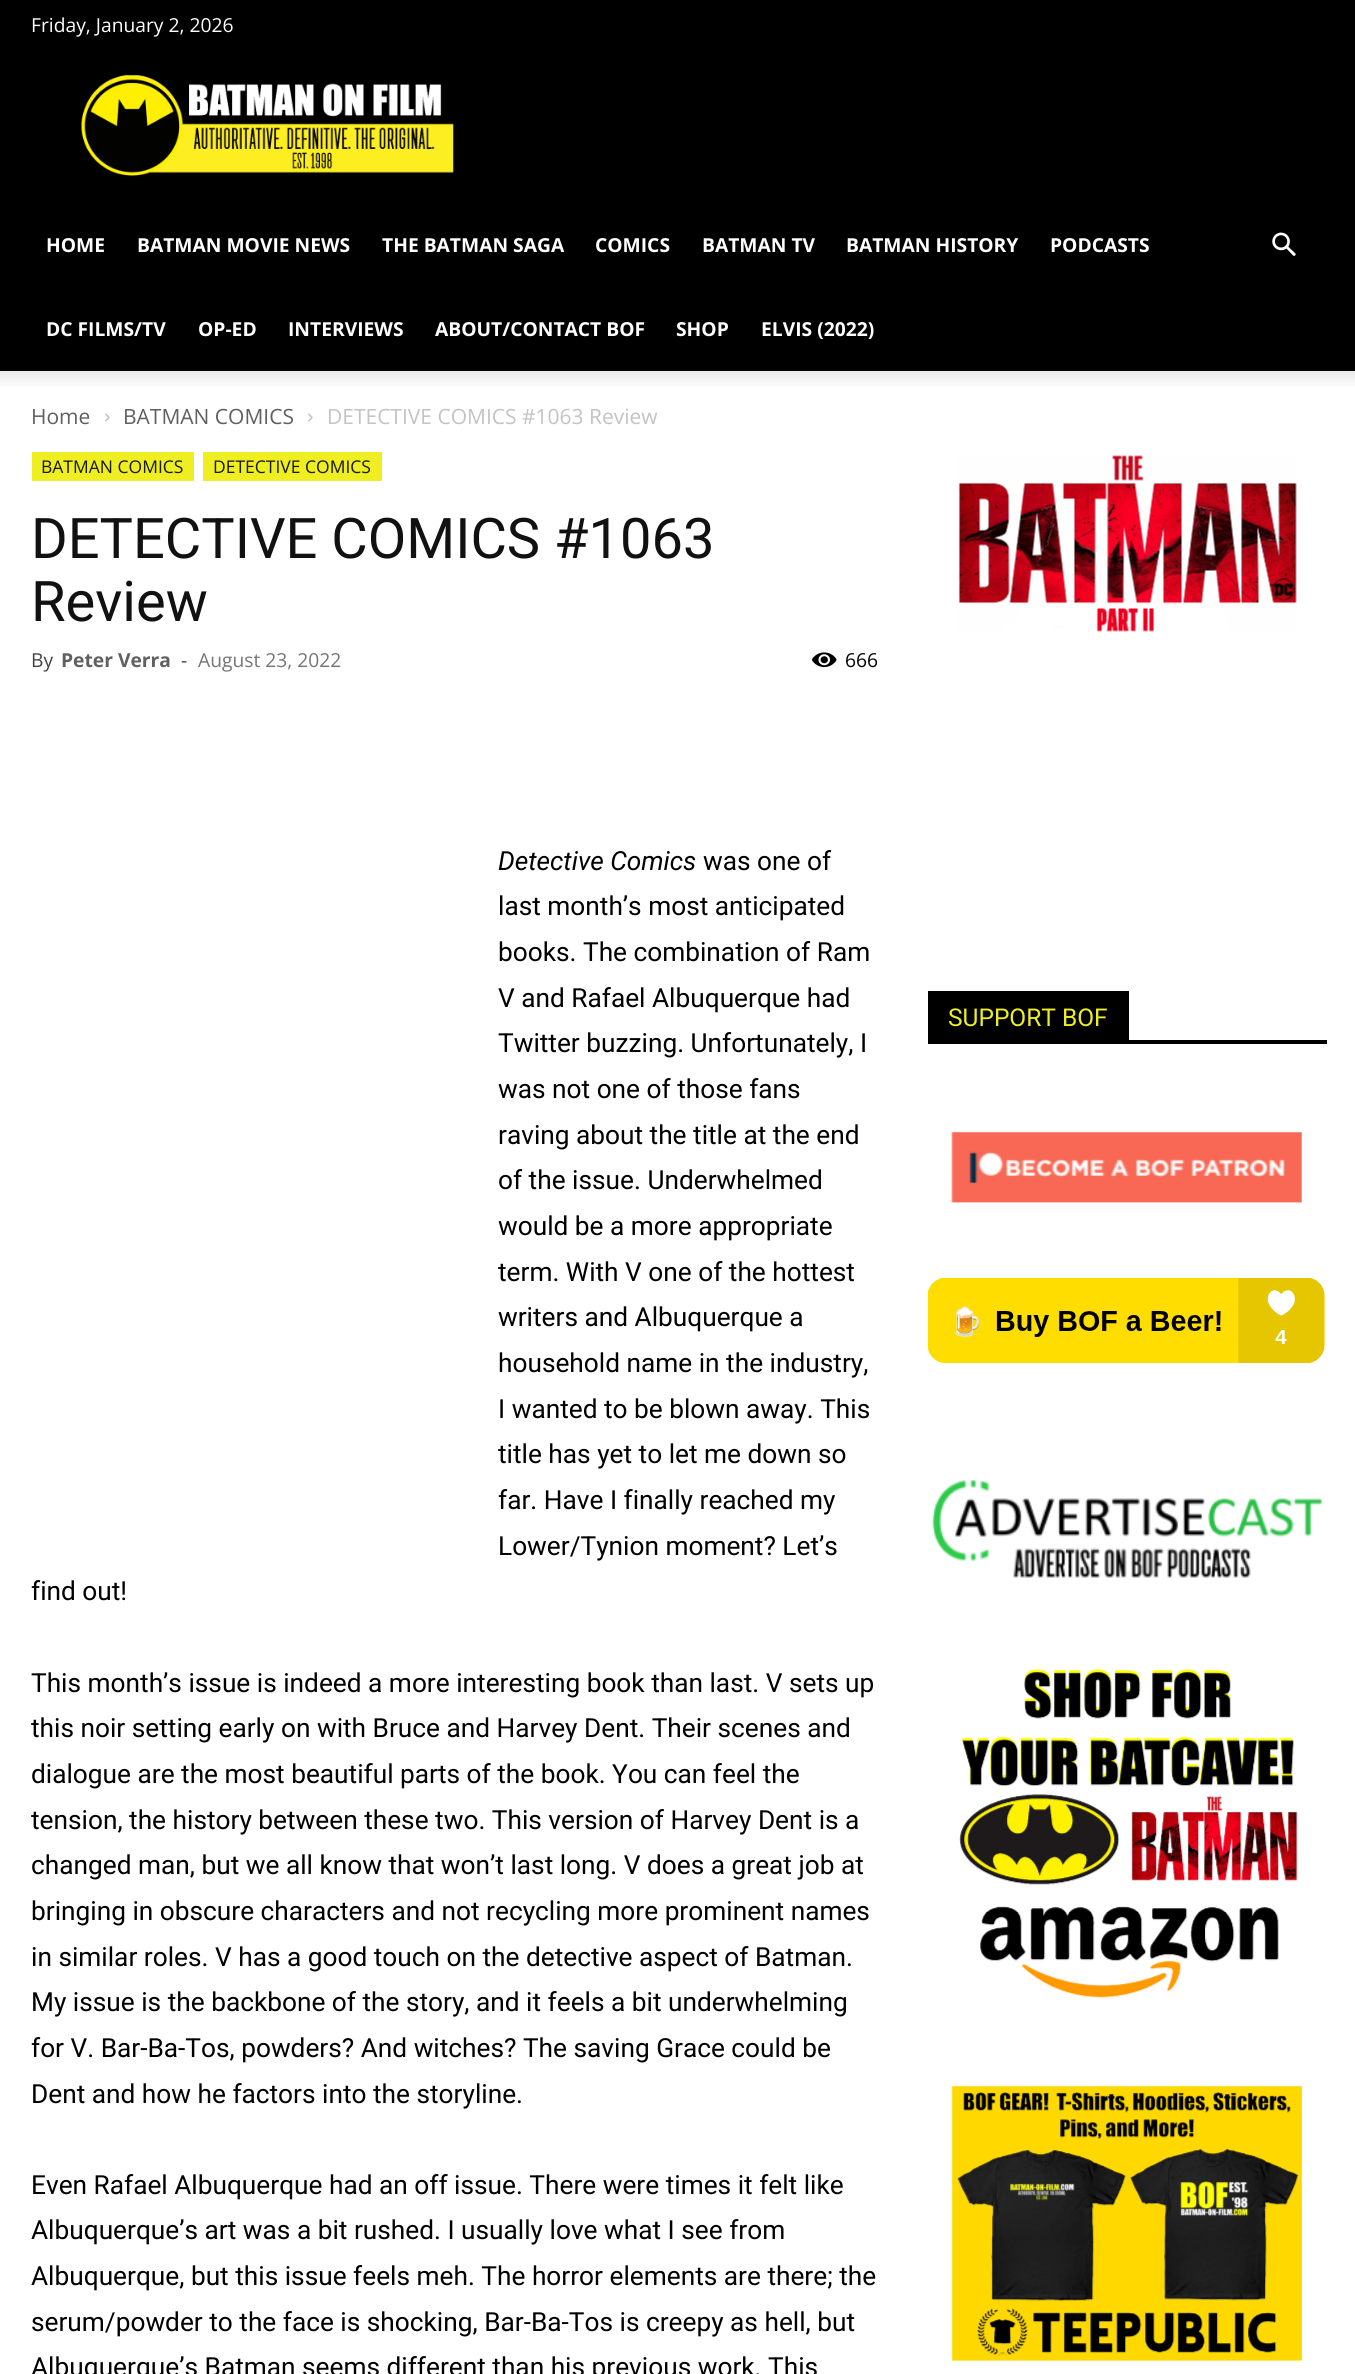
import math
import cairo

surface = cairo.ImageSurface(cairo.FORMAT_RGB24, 1355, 2374)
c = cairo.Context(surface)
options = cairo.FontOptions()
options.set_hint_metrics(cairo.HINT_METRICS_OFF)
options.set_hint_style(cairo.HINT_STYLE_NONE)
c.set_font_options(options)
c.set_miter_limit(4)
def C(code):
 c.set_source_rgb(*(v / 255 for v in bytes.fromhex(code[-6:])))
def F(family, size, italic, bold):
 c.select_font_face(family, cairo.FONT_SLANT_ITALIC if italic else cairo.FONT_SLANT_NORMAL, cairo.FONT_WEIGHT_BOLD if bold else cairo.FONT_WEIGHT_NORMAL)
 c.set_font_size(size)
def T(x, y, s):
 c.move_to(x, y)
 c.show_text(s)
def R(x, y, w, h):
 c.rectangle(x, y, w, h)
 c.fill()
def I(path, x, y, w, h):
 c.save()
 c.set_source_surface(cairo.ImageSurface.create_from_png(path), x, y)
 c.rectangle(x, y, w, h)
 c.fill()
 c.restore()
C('000000')
c.paint()
F('Open Sans',19.25,0,0)
C('ffffff')
T(31,32,'Friday, January 2, 2026')
I('1.png',81,75,373,101)
F('Open Sans',19.25,0,1)
T(46,252,'HOME')
T(137,252,'BATMAN MOVIE NEWS')
T(382,252,'THE BATMAN SAGA')
T(595,252,'COMICS')
T(702,252,'BATMAN TV')
T(846,252,'BATMAN HISTORY')
T(1050,252,'PODCASTS')
T(46,336,'DC FILMS/TV')
T(198,336,'OP-ED')
T(288,336,'INTERVIEWS')
T(435,336,'ABOUT/CONTACT BOF')
T(676,336,'SHOP')
T(761,336,'ELVIS (2022)')
I('2.png',1272,232,24,24)
R(0,371,1355,2003)
I('3.png',0,371,1355,15)
F('Open Sans',21,0,0)
C('606060')
T(31,424,'Home')
I('4.png',105,413,5,9)
T(123,424,'BATMAN COMICS')
I('4.png',308,413,5,9)
C('c3c3c3')
T(327,424,'DETECTIVE COMICS #1063 Review')
C('eeee22')
R(32,452,162,29)
F('Open Sans',17.5,0,0)
C('181803')
T(41,473,'BATMAN COMICS')
C('eeee22')
R(203,452,179,29)
C('181803')
T(213,473,'DETECTIVE COMICS')
F('Roboto',56,0,0)
C('111111')
T(31,558,'DETECTIVE COMICS #1063')
T(31,621,'Review')
F('Open Sans',19.25,0,0)
C('444444')
T(31,667,'By')
F('Open Sans',19.25,0,1)
C('606060')
T(61,667,'Peter Verra')
F('Open Sans',19.25,0,0)
C('444444')
T(181,667,'-')
C('767676')
T(198,667,'August 23, 2022')
I('5.png',812,652,25,16)
C('000000')
T(845,667,'666')
F('Roboto',26.25,1,0)
T(498,870,'Detective Comics')
F('Roboto',26.25,0,0)
T(703,870,'was one of')
T(498,915,'last month’s most anticipated')
T(498,961,'books. The combination of Ram')
T(498,1007,'V and Rafael Albuquerque had')
T(498,1052,'Twitter buzzing. Unfortunately, I')
T(498,1098,'was not one of those fans')
T(498,1144,'raving about the title at the end')
T(498,1189,'of the issue. Underwhelmed')
T(498,1235,'would be a more appropriate')
T(498,1281,'term. With V one of the hottest')
T(498,1326,'writers and Albuquerque a')
T(498,1372,'household name in the industry,')
T(498,1418,'I wanted to be blown away. This')
T(498,1463,'title has yet to let me down so')
T(498,1509,'far. Have I finally reached my')
T(498,1555,'Lower/Tynion moment? Let’s')
T(31,1600,'find out!')
T(31,1692,'This month’s issue is indeed a more interesting book than last. V sets up')
T(31,1737,'this noir setting early on with Bruce and Harvey Dent. Their scenes and')
T(31,1783,'dialogue are the most beautiful parts of the book. You can feel the')
T(31,1829,'tension, the history between these two. This version of Harvey Dent is a')
T(31,1874,'changed man, but we all know that won’t last long. V does a great job at')
T(31,1920,'bringing in obscure characters and not recycling more prominent names')
T(31,1966,'in similar roles. V has a good touch on the detective aspect of Batman.')
T(31,2011,'My issue is the backbone of the story, and it feels a bit underwhelming')
T(31,2057,'for V. Bar-Ba-Tos, powders? And witches? The saving Grace could be')
T(31,2103,'Dent and how he factors into the storyline.')
T(31,2194,'Even Rafael Albuquerque had an off issue. There were times it felt like')
T(31,2239,'Albuquerque’s art was a bit rushed. I usually love what I see from')
T(31,2285,'Albuquerque, but this issue feels meh. The horror elements are there; the')
T(31,2331,'serum/powder to the face is shocking, Bar-Ba-Tos is creepy as hell, but')
T(31,2376,'Albuquerque’s Batman seems different than his previous work. This')
I('6.png',958,455,339,177)
R(928,1040,399,4)
R(928,991,201,49)
F('Roboto',24.5,0,0)
C('eeee22')
T(948,1026,'SUPPORT BOF')
I('7.png',951,1132,351,71)
I('8.png',928,1278,397,85)
I('9.png',932,1479,391,99)
I('10.png',959,1669,339,329)
I('11.png',951,2085,351,276)
surface.write_to_png('o.png')
